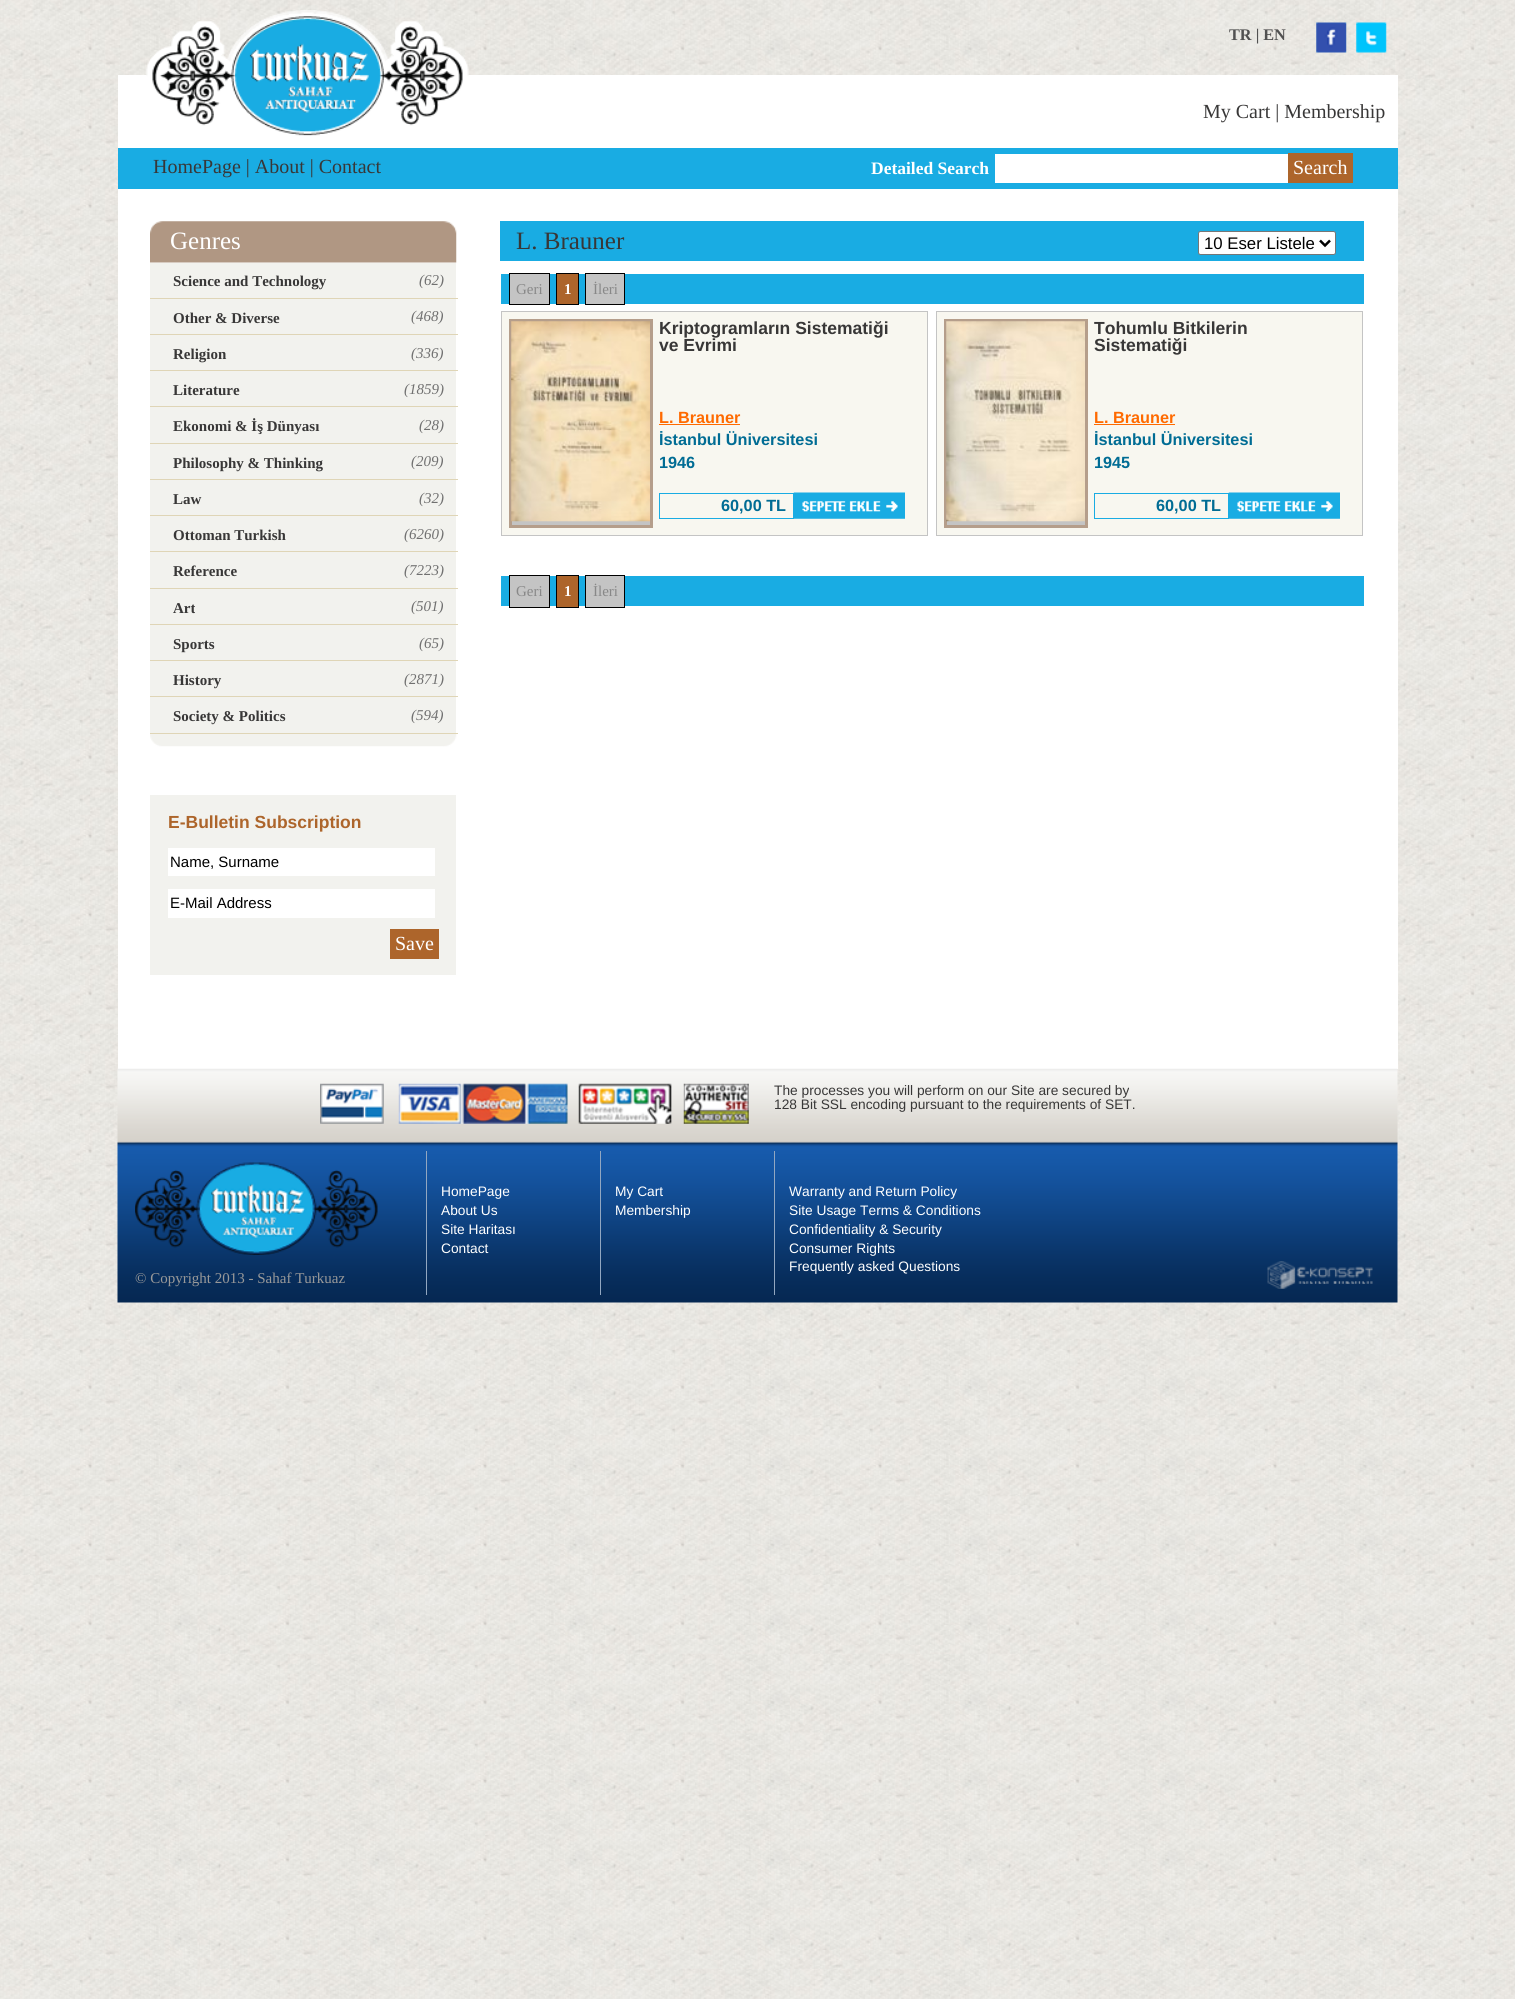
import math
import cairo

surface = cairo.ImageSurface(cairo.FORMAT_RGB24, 1515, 1999)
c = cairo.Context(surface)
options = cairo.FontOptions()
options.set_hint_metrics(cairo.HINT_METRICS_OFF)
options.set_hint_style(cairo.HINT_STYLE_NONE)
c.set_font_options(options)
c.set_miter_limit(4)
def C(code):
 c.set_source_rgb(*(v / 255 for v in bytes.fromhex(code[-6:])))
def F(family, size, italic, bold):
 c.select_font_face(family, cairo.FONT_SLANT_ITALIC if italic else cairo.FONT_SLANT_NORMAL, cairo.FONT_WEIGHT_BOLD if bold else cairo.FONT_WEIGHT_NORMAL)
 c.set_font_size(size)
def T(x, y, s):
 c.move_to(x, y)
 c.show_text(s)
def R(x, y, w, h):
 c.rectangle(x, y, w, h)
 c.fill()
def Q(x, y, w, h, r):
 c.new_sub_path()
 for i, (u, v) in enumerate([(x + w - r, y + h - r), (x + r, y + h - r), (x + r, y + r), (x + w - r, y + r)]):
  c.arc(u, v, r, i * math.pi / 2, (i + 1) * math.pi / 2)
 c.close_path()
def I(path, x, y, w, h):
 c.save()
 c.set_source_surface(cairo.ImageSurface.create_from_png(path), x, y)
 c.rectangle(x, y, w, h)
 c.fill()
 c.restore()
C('ffffff')
c.paint()
I('1.png',0,0,1515,1999)
C('ffffff')
R(118,75,1280,73)
I('2.png',146,10,323,126)
F('Liberation Serif',16.25,0,1)
C('515151')
T(1229,40,'TR | EN')
I('3.png',1316,22,31,31)
I('4.png',1356,22,31,31)
F('Liberation Serif',20,0,0)
C('383737')
T(1203,118,'My Cart | Membership')
C('19ace3')
R(118,148,1280,41)
C('383737')
T(153,173,'HomePage | About | Contact')
F('Liberation Serif',17.5,0,1)
C('ffffff')
T(871,174,'Detailed Search')
R(995,154,293,29)
C('ad652b')
R(1288,153,65,30)
F('Liberation Serif',20,0,0)
C('ffffff')
T(1293,174,'Search')
R(118,189,1280,880)
I('5.png',150,221,307,42)
F('Liberation Serif',25,0,0)
T(170,249,'Genres')
C('f2f2ee')
R(150,263,306,470)
F('Liberation Serif',15,0,1)
C('383737')
T(173,286,'Science and Technology')
C('dfd5b6')
R(150,298,308,1)
F('Liberation Serif',15,1,0)
C('707070')
T(419,285,'(62)')
F('Liberation Serif',15,0,1)
C('383737')
T(173,323,'Other & Diverse')
C('dfd5b6')
R(150,334,308,1)
F('Liberation Serif',15,1,0)
C('707070')
T(411,321,'(468)')
F('Liberation Serif',15,0,1)
C('383737')
T(173,359,'Religion')
C('dfd5b6')
R(150,370,308,1)
F('Liberation Serif',15,1,0)
C('707070')
T(411,358,'(336)')
F('Liberation Serif',15,0,1)
C('383737')
T(173,395,'Literature')
C('dfd5b6')
R(150,406,308,1)
F('Liberation Serif',15,1,0)
C('707070')
T(404,394,'(1859)')
F('Liberation Serif',15,0,1)
C('383737')
T(173,431,'Ekonomi & İş Dünyası')
C('dfd5b6')
R(150,443,308,1)
F('Liberation Serif',15,1,0)
C('707070')
T(419,430,'(28)')
F('Liberation Serif',15,0,1)
C('383737')
T(173,468,'Philosophy & Thinking')
C('dfd5b6')
R(150,479,308,1)
F('Liberation Serif',15,1,0)
C('707070')
T(411,466,'(209)')
F('Liberation Serif',15,0,1)
C('383737')
T(173,504,'Law')
C('dfd5b6')
R(150,515,308,1)
F('Liberation Serif',15,1,0)
C('707070')
T(419,503,'(32)')
F('Liberation Serif',15,0,1)
C('383737')
T(173,540,'Ottoman Turkish')
C('dfd5b6')
R(150,551,308,1)
F('Liberation Serif',15,1,0)
C('707070')
T(404,539,'(6260)')
F('Liberation Serif',15,0,1)
C('383737')
T(173,576,'Reference')
C('dfd5b6')
R(150,588,308,1)
F('Liberation Serif',15,1,0)
C('707070')
T(404,575,'(7223)')
F('Liberation Serif',15,0,1)
C('383737')
T(173,613,'Art')
C('dfd5b6')
R(150,624,308,1)
F('Liberation Serif',15,1,0)
C('707070')
T(411,611,'(501)')
F('Liberation Serif',15,0,1)
C('383737')
T(173,649,'Sports')
C('dfd5b6')
R(150,660,308,1)
F('Liberation Serif',15,1,0)
C('707070')
T(419,648,'(65)')
F('Liberation Serif',15,0,1)
C('383737')
T(173,685,'History')
C('dfd5b6')
R(150,696,308,1)
F('Liberation Serif',15,1,0)
C('707070')
T(404,684,'(2871)')
F('Liberation Serif',15,0,1)
C('383737')
T(173,721,'Society & Politics')
C('dfd5b6')
R(150,733,308,1)
F('Liberation Serif',15,1,0)
C('707070')
T(411,720,'(594)')
I('6.png',150,734,307,13)
C('f2f2ee')
R(150,795,306,180)
F('Liberation Sans',17.5,0,1)
C('ad652b')
T(168,828,'E-Bulletin Subscription')
C('ffffff')
R(168,848,267,28)
F('Liberation Sans',15,0,0)
C('000000')
T(170,867,'Name, Surname')
C('ffffff')
R(168,889,267,29)
C('000000')
T(170,908,'E-Mail Address')
C('ad652b')
R(390,929,49,30)
F('Liberation Serif',20,0,0)
C('ffffff')
T(395,950,'Save')
C('19ace3')
R(500,221,864,40)
F('Liberation Serif',25,0,0)
C('383737')
T(516,249,'L. Brauner')
C('ffffff')
Q(1198.5,231.5,137,23,2)
c.fill_preserve()
C('767676')
c.set_line_width(1)
c.stroke()
c.new_path()
c.move_to(1320,240.5)
c.line_to(1325,245.5)
c.line_to(1330,240.5)
C('000000')
c.set_line_width(2.5)
c.stroke()
F('Liberation Sans',16.75,0,0)
T(1204,249,'10 Eser Listele')
C('19ace3')
R(501,274,863,30)
C('c4c4c4')
c.rectangle(509.5,273.5,40,31)
c.fill_preserve()
C('000000')
c.set_line_width(1)
c.stroke()
F('Liberation Serif',15,0,0)
C('888888')
T(516,294,'Geri')
C('ad652b')
c.rectangle(556.5,273.5,22,31)
c.fill_preserve()
C('000000')
c.stroke()
F('Liberation Serif',15,0,1)
C('ffffff')
T(564,294,'1')
C('c4c4c4')
c.rectangle(585.5,273.5,39,31)
c.fill_preserve()
C('000000')
c.stroke()
F('Liberation Serif',15,0,0)
C('888888')
T(593,294,'İleri')
C('f8f7f0')
c.rectangle(501.5,311.5,426,224)
c.fill_preserve()
C('c4c4c4')
c.stroke()
R(512,521,138,4)
c.rectangle(510.5,320.5,141,206)
C('b59e8b')
c.set_line_width(3)
c.stroke()
I('7.png',511,321,139,201)
F('Liberation Sans',17.5,0,1)
C('383737')
T(659,334,'Kriptogramların Sistematiği')
T(659,351,'ve Evrimi')
F('Liberation Sans',16.25,0,1)
C('ff6a00')
T(659,423,'L. Brauner')
R(659,424,81,1)
C('006c94')
T(659,445,'İstanbul Üniversitesi')
T(659,468,'1946')
c.rectangle(659.5,493.5,134,25)
C('19ace3')
c.set_line_width(1)
c.stroke()
C('006c94')
T(721,511,'60,00 TL')
I('8.png',793,492,112,27)
C('f8f7f0')
c.rectangle(936.5,311.5,426,224)
c.fill_preserve()
C('c4c4c4')
c.stroke()
R(947,521,138,4)
c.rectangle(945.5,320.5,141,206)
C('b59e8b')
c.set_line_width(3)
c.stroke()
I('9.png',946,321,139,201)
F('Liberation Sans',17.5,0,1)
C('383737')
T(1094,334,'Tohumlu Bitkilerin')
T(1094,351,'Sistematiği')
F('Liberation Sans',16.25,0,1)
C('ff6a00')
T(1094,423,'L. Brauner')
R(1094,424,81,1)
C('006c94')
T(1094,445,'İstanbul Üniversitesi')
T(1094,468,'1945')
c.rectangle(1094.5,493.5,134,25)
C('19ace3')
c.set_line_width(1)
c.stroke()
C('006c94')
T(1156,511,'60,00 TL')
I('8.png',1228,492,112,27)
C('19ace3')
R(501,576,863,30)
C('c4c4c4')
c.rectangle(509.5,575.5,40,32)
c.fill_preserve()
C('000000')
c.stroke()
F('Liberation Serif',15,0,0)
C('888888')
T(516,596,'Geri')
C('ad652b')
c.rectangle(556.5,575.5,22,32)
c.fill_preserve()
C('000000')
c.stroke()
F('Liberation Serif',15,0,1)
C('ffffff')
T(564,596,'1')
C('c4c4c4')
c.rectangle(585.5,575.5,39,32)
c.fill_preserve()
C('000000')
c.stroke()
F('Liberation Serif',15,0,0)
C('888888')
T(593,596,'İleri')
I('10.png',117,1068,1281,75)
I('11.png',320,1083,429,41)
F('Liberation Sans',13.75,0,0)
C('383737')
T(774,1095,'The processes you will perform on our Site are secured by')
T(774,1109,'128 Bit SSL encoding pursuant to the requirements of SET.')
I('12.png',117,1142,1281,161)
I('13.png',135,1162,243,93)
F('Liberation Serif',15,0,0)
C('999999')
T(135,1283,'© Copyright 2013 - Sahaf Turkuaz')
C('92a7c1')
R(426,1151,1,144)
F('Liberation Sans',13.75,0,0)
C('ffffff')
T(441,1196,'HomePage')
T(441,1215,'About Us')
T(441,1234,'Site Haritası')
T(441,1253,'Contact')
C('92a7c1')
R(600,1151,1,144)
C('ffffff')
T(615,1196,'My Cart')
T(615,1215,'Membership')
C('92a7c1')
R(774,1151,1,144)
C('ffffff')
T(789,1196,'Warranty and Return Policy')
T(789,1215,'Site Usage Terms & Conditions')
T(789,1234,'Confidentiality & Security')
T(789,1253,'Consumer Rights')
T(789,1271,'Frequently asked Questions')
I('14.png',1267,1261,106,28)
surface.write_to_png('o.png')
